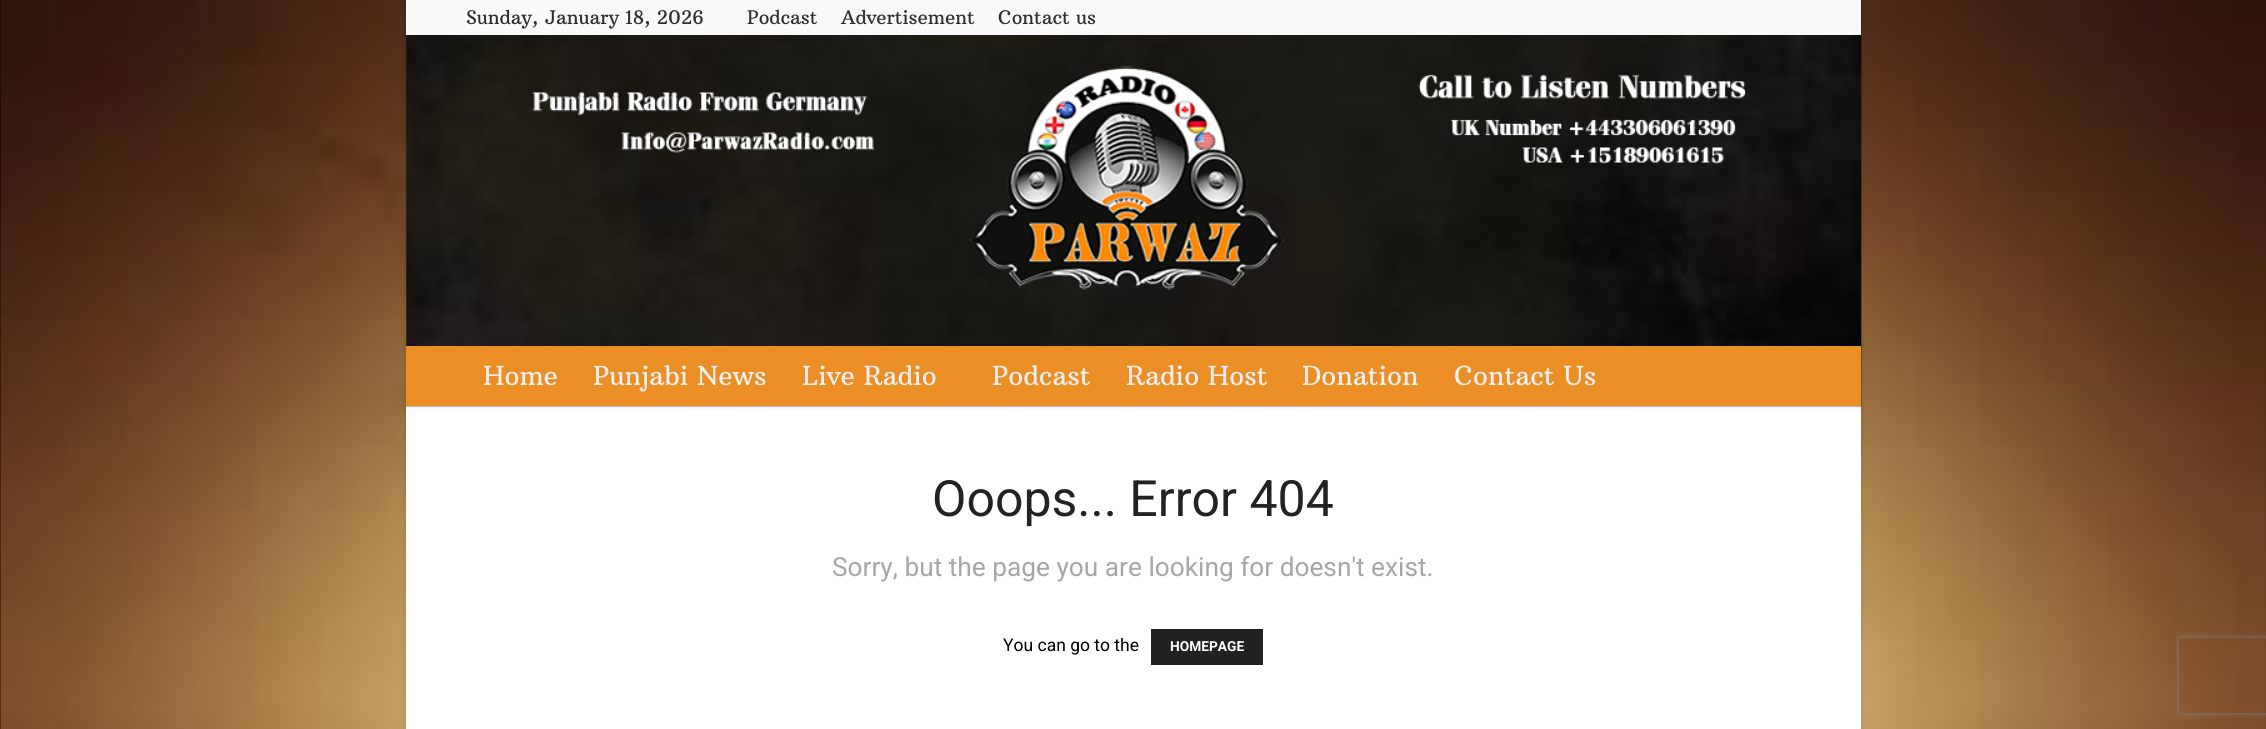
import math
import cairo

surface = cairo.ImageSurface(cairo.FORMAT_RGB24, 2266, 729)
c = cairo.Context(surface)
options = cairo.FontOptions()
options.set_hint_metrics(cairo.HINT_METRICS_OFF)
options.set_hint_style(cairo.HINT_STYLE_NONE)
c.set_font_options(options)
c.set_miter_limit(4)
def C(code):
 c.set_source_rgb(*(v / 255 for v in bytes.fromhex(code[-6:])))
def F(family, size, italic, bold):
 c.select_font_face(family, cairo.FONT_SLANT_ITALIC if italic else cairo.FONT_SLANT_NORMAL, cairo.FONT_WEIGHT_BOLD if bold else cairo.FONT_WEIGHT_NORMAL)
 c.set_font_size(size)
def T(x, y, s):
 c.move_to(x, y)
 c.show_text(s)
def R(x, y, w, h):
 c.rectangle(x, y, w, h)
 c.fill()
def Q(x, y, w, h, r):
 c.new_sub_path()
 for i, (u, v) in enumerate([(x + w - r, y + h - r), (x + r, y + h - r), (x + r, y + r), (x + w - r, y + r)]):
  c.arc(u, v, r, i * math.pi / 2, (i + 1) * math.pi / 2)
 c.close_path()
def S(x, y, w, h, r, blur, alpha):
 c.push_group_with_content(cairo.CONTENT_ALPHA)
 c.set_operator(cairo.OPERATOR_SOURCE)
 for i in range(15, -16, -2):
  e = blur * i / 6
  if min(w, h) + 2 * e > 0:
   c.set_source_rgba(0, 0, 0, alpha * math.erfc((i - 1) / 8.5) / 2)
   Q(x - e, y - e, w + 2 * e, h + 2 * e, max(0, min(r + e + blur * .6, min(w, h) / 2 + e)))
   c.fill()
 c.mask(c.pop_group())
def I(path, x, y, w, h):
 c.save()
 c.set_source_surface(cairo.ImageSurface.create_from_png(path), x, y)
 c.rectangle(x, y, w, h)
 c.fill()
 c.restore()
C('000000')
c.paint()
I('1.png',0,0,2266,729)
S(406,406,1455,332,0,3,.12)
C('ffffff')
R(406,406,1455,323)
C('000000')
S(406,0,1455,406,0,3,.12)
I('2.png',406,0,1456,407)
C('f9f9f9')
R(406,0,1455,35)
F('Arbutus Slab',18.75,0,0)
C('2f2f2f')
T(466,24,'Sunday, January 18, 2026')
T(747,24,'Podcast')
T(841,24,'Advertisement')
T(998,24,'Contact us')
I('3.png',532,66,1214,224)
C('ea8e25')
R(406,346,1455,60)
F('Arbutus Slab',26.25,0,0)
C('efefef')
T(483,385,'Home')
T(593,385,'Punjabi News')
T(802,385,'Live Radio')
T(992,385,'Podcast')
T(1126,385,'Radio Host')
T(1302,385,'Donation')
T(1454,385,'Contact Us')
F('Roboto',50,0,0)
C('222222')
T(932,516,'Ooops... Error 404')
F('Roboto',26.25,0,0)
C('a6a6a6')
T(832,576,'Sorry, but the page you are looking for doesn\'t exist.')
F('Roboto',17.5,0,0)
C('000000')
T(1003,651,'You can go to the')
C('222222')
R(1151,629,112,36)
F('Roboto',13.75,0,1)
C('ffffff')
T(1170,651,'HOMEPAGE')
c.save()
c.set_fill_rule(cairo.FILL_RULE_EVEN_ODD)
c.new_path()
c.move_to(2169,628)
c.line_to(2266,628)
c.line_to(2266,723)
c.line_to(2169,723)
c.close_path()
c.move_to(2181.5,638)
c.line_to(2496.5,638)
c.curve_to(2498,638,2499,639,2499,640.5)
c.line_to(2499,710.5)
c.curve_to(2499,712,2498,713,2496.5,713)
c.line_to(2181.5,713)
c.curve_to(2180,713,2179,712,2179,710.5)
c.line_to(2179,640.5)
c.curve_to(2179,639,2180,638,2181.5,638)
c.close_path()
c.clip()
C('808080')
S(2179,638,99,75,2.5,3,1)
c.restore()
surface.write_to_png('o.png')
